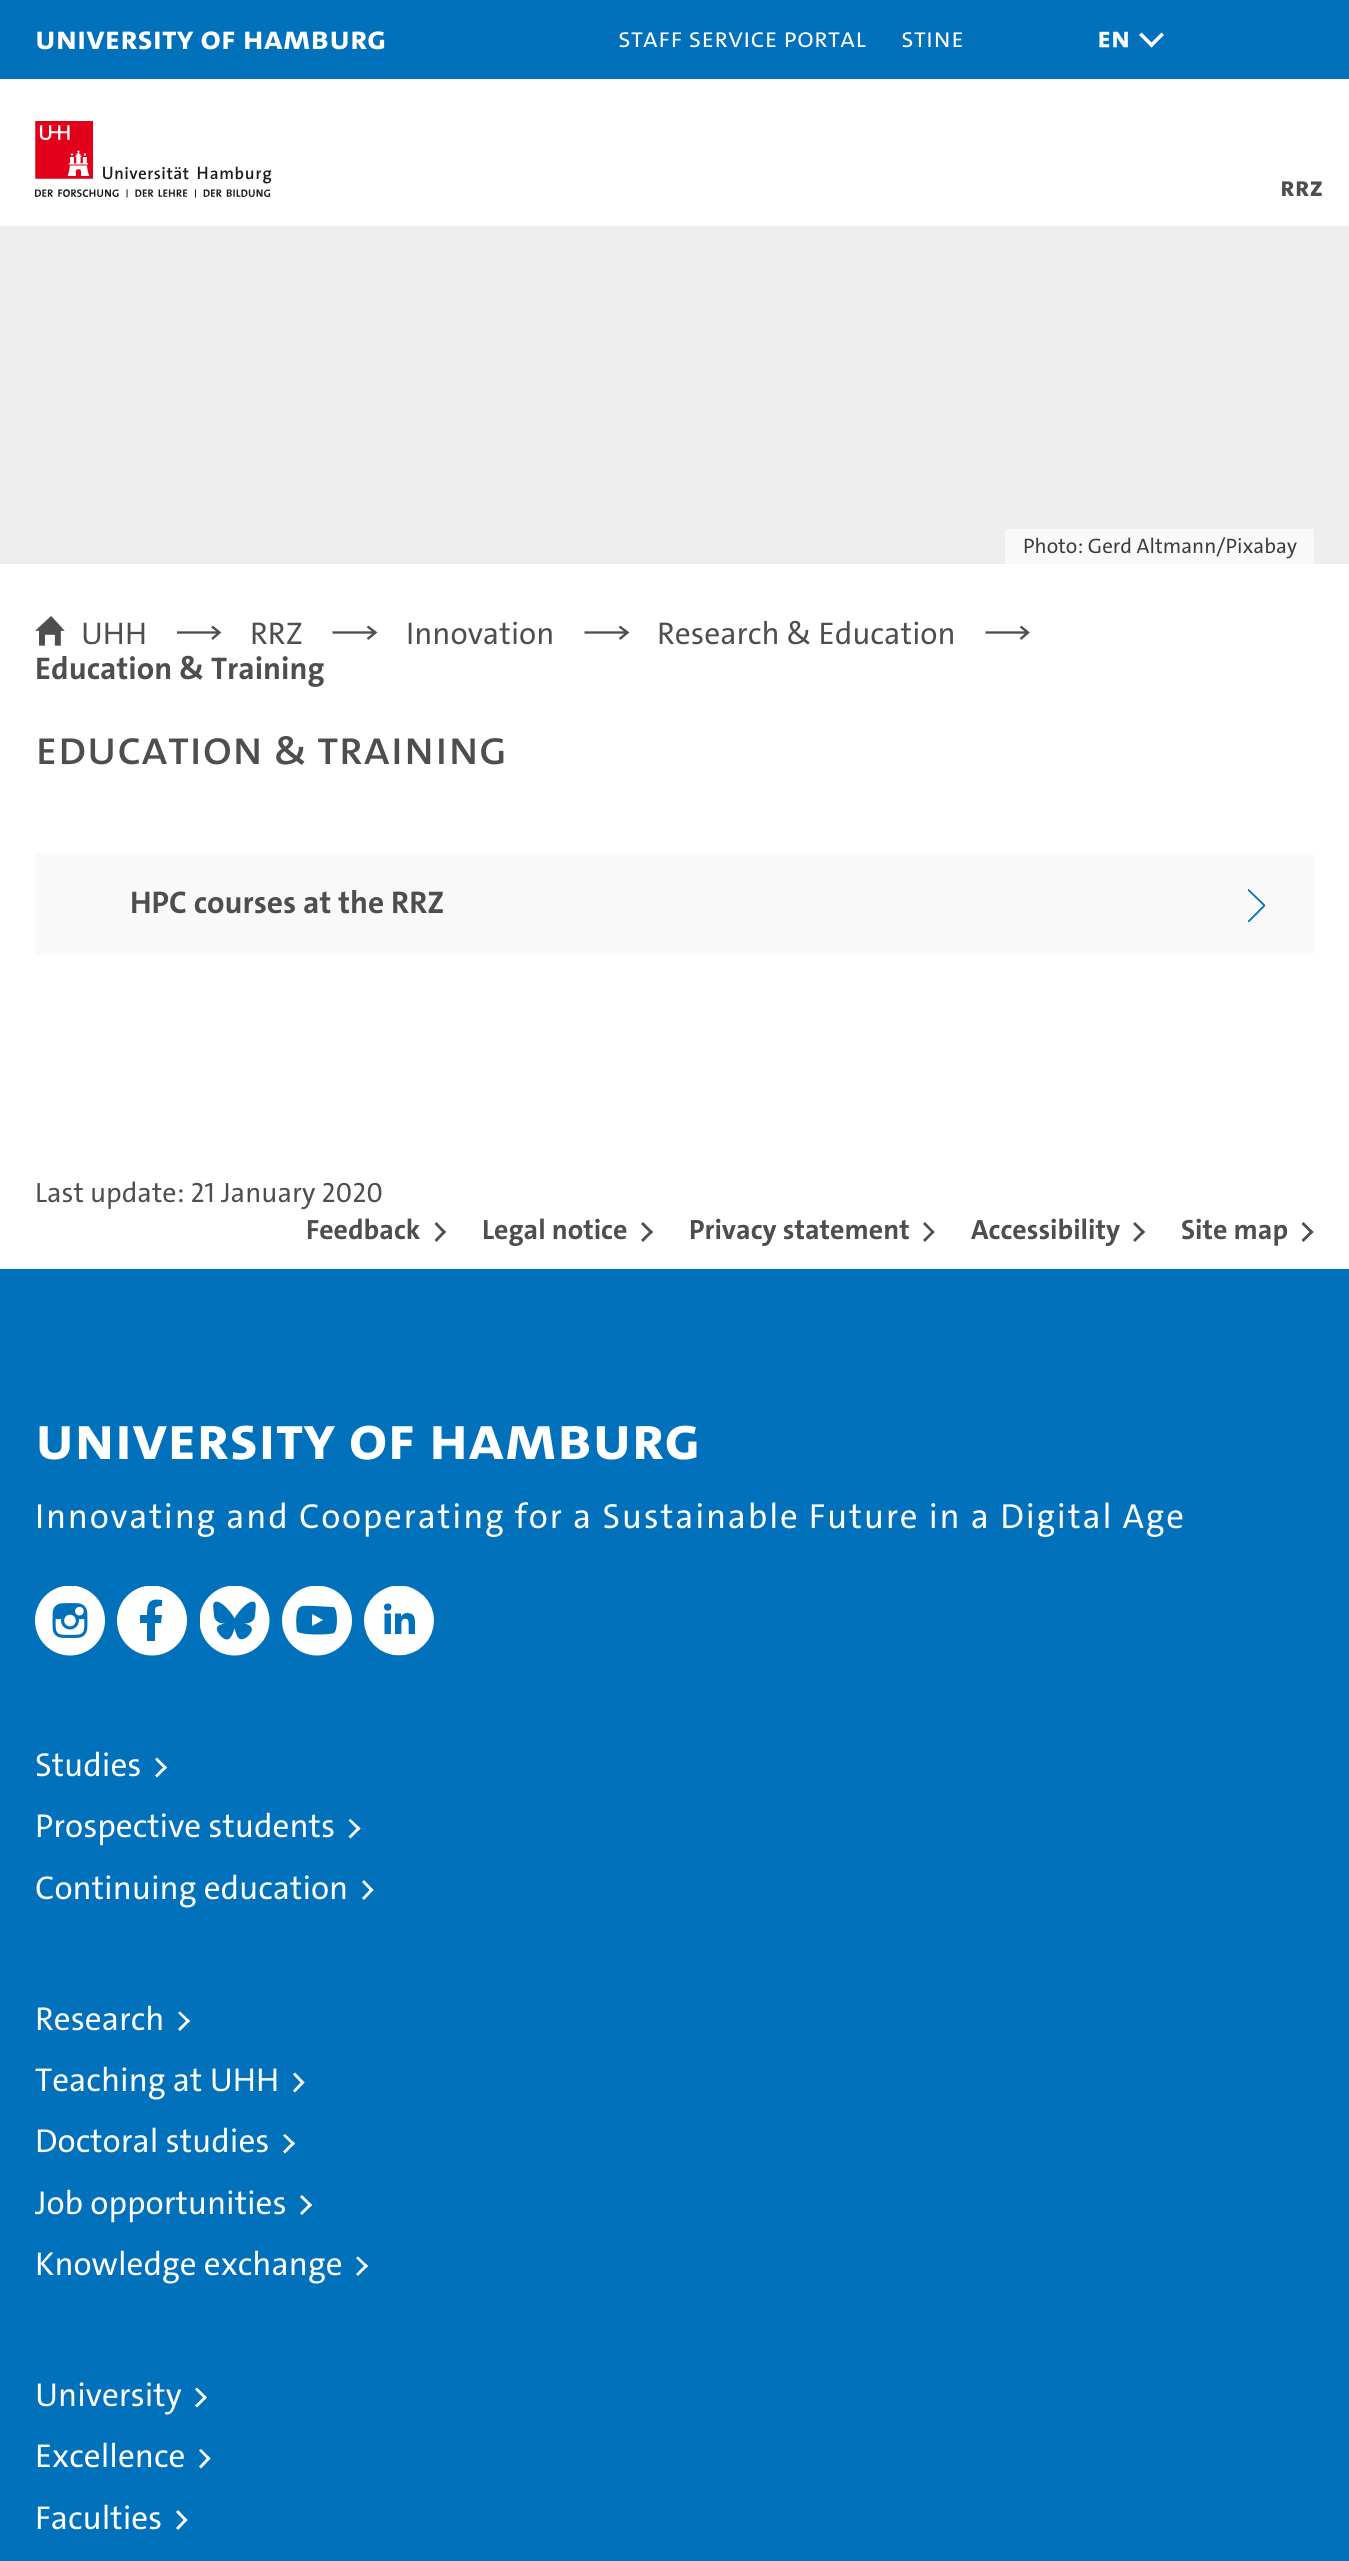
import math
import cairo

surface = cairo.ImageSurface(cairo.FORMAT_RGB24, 1349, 2561)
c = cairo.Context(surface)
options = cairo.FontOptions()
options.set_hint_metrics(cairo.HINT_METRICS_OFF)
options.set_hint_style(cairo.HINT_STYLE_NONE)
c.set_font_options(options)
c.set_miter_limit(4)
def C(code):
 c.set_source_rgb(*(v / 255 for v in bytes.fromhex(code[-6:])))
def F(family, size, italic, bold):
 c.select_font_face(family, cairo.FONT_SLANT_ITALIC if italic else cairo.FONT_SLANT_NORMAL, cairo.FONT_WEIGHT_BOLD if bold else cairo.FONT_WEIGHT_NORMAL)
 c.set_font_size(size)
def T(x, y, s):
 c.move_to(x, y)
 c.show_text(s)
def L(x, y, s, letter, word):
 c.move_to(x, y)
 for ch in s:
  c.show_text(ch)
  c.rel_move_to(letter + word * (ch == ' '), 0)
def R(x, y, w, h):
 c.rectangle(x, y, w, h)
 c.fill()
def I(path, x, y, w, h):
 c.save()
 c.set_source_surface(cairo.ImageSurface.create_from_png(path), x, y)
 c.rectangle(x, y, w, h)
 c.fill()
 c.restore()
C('ffffff')
c.paint()
C('0271bb')
R(0,0,1349,79)
F('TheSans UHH',33.25,0,1)
C('ffffff')
T(35,49,'University of Hamburg')
F('TheSans UHH Light',28,0,0)
T(618,47,'Staff Service Portal')
T(901,47,'STiNE')
I('1.png',1099,31,29,17)
c.new_path()
c.move_to(1161.5,32.5)
c.line_to(1164,35)
c.line_to(1151.5,47.5)
c.line_to(1149,45)
c.close_path()
c.fill()
c.new_path()
c.move_to(1141.5,32.5)
c.line_to(1154,45)
c.line_to(1151.5,47.5)
c.line_to(1139,35)
c.close_path()
c.fill()
I('2.png',35,121,236,77)
F('TheSans UHH',28,0,1)
C('4e4e4e')
T(1280,196,'RRZ')
C('eeeeee')
R(0,226,1349,338)
C('f9f9f9')
R(1005,529,309,35)
F('TheSans UHH',21,0,0)
C('3c3c3c')
T(1023,553,'Photo: Gerd Altmann/Pixabay')
I('3.png',35,616,30,30)
F('TheSans UHH',31.5,0,0)
C('4e4e4e')
T(81,644,'UHH')
c.new_path()
c.move_to(177,632.5)
c.line_to(218.5,632.5)
c.move_to(212,626.5)
c.line_to(219.5,632.5)
c.line_to(212,639)
c.set_line_width(2.4)
c.stroke()
T(250,644,'RRZ')
c.new_path()
c.move_to(332.5,632.5)
c.line_to(374.5,632.5)
c.move_to(367.5,626.5)
c.line_to(375.5,632.5)
c.line_to(367.5,639)
c.stroke()
T(406,644,'Innovation')
c.new_path()
c.move_to(584.5,632.5)
c.line_to(626.5,632.5)
c.move_to(619.5,626.5)
c.line_to(627.5,632.5)
c.line_to(619.5,639)
c.stroke()
T(657,644,'Research & Education')
c.new_path()
c.move_to(985.5,632.5)
c.line_to(1027,632.5)
c.move_to(1020.5,626.5)
c.line_to(1028,632.5)
c.line_to(1020.5,639)
c.stroke()
F('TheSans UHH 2',31.5,0,1)
T(35,679,'Education & Training')
F('TheSans UHH 2',49,0,0)
T(35,764,'Education & Training')
C('faf9f9')
R(35,854,1279,100)
F('TheSans UHH 2',31.5,0,1)
C('4e4e4e')
T(130,913,'HPC courses at the RRZ')
c.save()
c.rectangle(1248,889,17,33)
c.clip()
c.new_path()
c.move_to(1248.5,890)
c.line_to(1264.5,905.5)
c.move_to(1264.5,905.5)
c.line_to(1248.5,921.5)
C('0271bb')
c.set_line_width(1.8)
c.set_line_cap(cairo.LINE_CAP_ROUND)
c.set_line_join(cairo.LINE_JOIN_ROUND)
c.stroke()
c.restore()
F('TheSans UHH',28,0,0)
T(35,1202,'Last update: 21 January 2020')
F('TheSans UHH 2',28,0,1)
T(306,1239,'Feedback')
c.new_path()
c.move_to(436.5,1222)
c.line_to(446,1232)
c.line_to(444,1234)
c.line_to(434.5,1224)
c.close_path()
c.fill()
c.new_path()
c.move_to(444,1230)
c.line_to(446,1232)
c.line_to(436.5,1242)
c.line_to(434.5,1240)
c.close_path()
c.fill()
T(482,1239,'Legal notice')
c.new_path()
c.move_to(643,1222)
c.line_to(653,1232)
c.line_to(651,1234)
c.line_to(641,1224)
c.close_path()
c.fill()
c.new_path()
c.move_to(651,1230)
c.line_to(653,1232)
c.line_to(643,1242)
c.line_to(641,1240)
c.close_path()
c.fill()
T(689,1239,'Privacy statement')
c.new_path()
c.move_to(925,1222)
c.line_to(934.5,1232)
c.line_to(933,1234)
c.line_to(923,1224)
c.close_path()
c.fill()
c.new_path()
c.move_to(933,1230)
c.line_to(934.5,1232)
c.line_to(925,1242)
c.line_to(923,1240)
c.close_path()
c.fill()
T(971,1239,'Accessibility')
c.new_path()
c.move_to(1135,1222)
c.line_to(1145,1232)
c.line_to(1143,1234)
c.line_to(1133,1224)
c.close_path()
c.fill()
c.new_path()
c.move_to(1143,1230)
c.line_to(1145,1232)
c.line_to(1135,1242)
c.line_to(1133,1240)
c.close_path()
c.fill()
T(1181,1239,'Site map')
c.new_path()
c.move_to(1303.5,1222)
c.line_to(1313.5,1232)
c.line_to(1311.5,1234)
c.line_to(1301.5,1224)
c.close_path()
c.fill()
c.new_path()
c.move_to(1311.5,1230)
c.line_to(1313.5,1232)
c.line_to(1303.5,1242)
c.line_to(1301.5,1240)
c.close_path()
c.fill()
C('0271bb')
R(0,1269,1349,1292)
F('TheSans UHH',63,0,1)
C('ffffff')
T(35,1459,'University of Hamburg')
F('TheSans UHH',35,0,0)
L(35,1528,'Innovating and Cooperating for a Sustainable Future in a Digital Age',1.75,0)
I('4.png',35,1586,70,70)
c.save()
c.rectangle(117,1586,70,70)
c.clip()
c.arc(152,1620.5,35,0,2 * math.pi)
c.fill()
c.restore()
C('0271bb')
c.new_path()
c.move_to(161,1623)
c.line_to(162,1615)
c.line_to(155,1615)
c.curve_to(155,1608,154,1606,162,1606)
c.line_to(162,1600)
c.curve_to(149,1598,147,1603,147,1615)
c.line_to(140,1615)
c.line_to(140,1623)
c.line_to(147,1623)
c.line_to(147,1641)
c.line_to(155,1641)
c.line_to(155,1623)
c.close_path()
c.fill()
I('5.png',200,1586,70,70)
c.save()
c.rectangle(282,1586,70,70)
c.clip()
C('ffffff')
c.arc(317,1620.5,35,0,2 * math.pi)
c.fill()
c.restore()
c.set_fill_rule(cairo.FILL_RULE_EVEN_ODD)
c.new_path()
c.move_to(332,1607)
c.line_to(334,1607)
c.curve_to(338,1610,338,1630,334,1633)
c.curve_to(330,1635,306,1635,301,1633)
c.curve_to(299,1633,298,1632,297,1631)
c.curve_to(296,1626,295,1610,300,1607)
c.curve_to(303,1605,311,1606,315,1606)
c.close_path()
c.move_to(312,1614)
c.line_to(312,1626)
c.line_to(323,1620)
c.close_path()
c.fill()
I('6.png',364,1586,70,70)
F('TheSans UHH',33.25,0,0)
C('ffffff')
T(35,1776,'Studies')
c.set_fill_rule(cairo.FILL_RULE_WINDING)
c.new_path()
c.move_to(157,1757.5)
c.line_to(167,1767.5)
c.line_to(165,1769.5)
c.line_to(155,1759.5)
c.close_path()
c.fill()
c.new_path()
c.move_to(165,1765.5)
c.line_to(167,1767.5)
c.line_to(157,1777.5)
c.line_to(155,1775.5)
c.close_path()
c.fill()
T(35,1837,'Prospective students')
c.new_path()
c.move_to(350.5,1819)
c.line_to(360.5,1828.5)
c.line_to(358.5,1830.5)
c.line_to(348.5,1820.5)
c.close_path()
c.fill()
c.new_path()
c.move_to(358.5,1826.5)
c.line_to(360.5,1828.5)
c.line_to(350.5,1838.5)
c.line_to(348.5,1836.5)
c.close_path()
c.fill()
T(35,1899,'Continuing education')
c.new_path()
c.move_to(364,1880)
c.line_to(373.5,1890)
c.line_to(371.5,1892)
c.line_to(362,1882)
c.close_path()
c.fill()
c.new_path()
c.move_to(371.5,1888)
c.line_to(373.5,1890)
c.line_to(364,1900)
c.line_to(362,1898)
c.close_path()
c.fill()
T(35,2030,'Research')
c.new_path()
c.move_to(180,2011.5)
c.line_to(190,2021)
c.line_to(188,2023)
c.line_to(178,2013)
c.close_path()
c.fill()
c.new_path()
c.move_to(188,2019)
c.line_to(190,2021)
c.line_to(180,2031)
c.line_to(178,2029)
c.close_path()
c.fill()
T(35,2091,'Teaching at UHH')
c.new_path()
c.move_to(295,2072.5)
c.line_to(304.5,2082.5)
c.line_to(302.5,2084.5)
c.line_to(293,2074.5)
c.close_path()
c.fill()
c.new_path()
c.move_to(302.5,2080.5)
c.line_to(304.5,2082.5)
c.line_to(295,2092.5)
c.line_to(293,2090.5)
c.close_path()
c.fill()
T(35,2152,'Doctoral studies')
c.new_path()
c.move_to(285,2134)
c.line_to(295,2143.5)
c.line_to(293,2145.5)
c.line_to(283,2135.5)
c.close_path()
c.fill()
c.new_path()
c.move_to(293,2141.5)
c.line_to(295,2143.5)
c.line_to(285,2153.5)
c.line_to(283,2151.5)
c.close_path()
c.fill()
T(35,2214,'Job opportunities')
c.new_path()
c.move_to(302,2195)
c.line_to(312,2205)
c.line_to(310,2207)
c.line_to(300,2197)
c.close_path()
c.fill()
c.new_path()
c.move_to(310,2203)
c.line_to(312,2205)
c.line_to(302,2215)
c.line_to(300,2213)
c.close_path()
c.fill()
T(35,2275,'Knowledge exchange')
c.new_path()
c.move_to(358,2256.5)
c.line_to(368,2266)
c.line_to(366,2268)
c.line_to(356,2258)
c.close_path()
c.fill()
c.new_path()
c.move_to(366,2264)
c.line_to(368,2266)
c.line_to(358,2276)
c.line_to(356,2274)
c.close_path()
c.fill()
T(35,2406,'University')
c.new_path()
c.move_to(197,2387.5)
c.line_to(207,2397.5)
c.line_to(205,2399.5)
c.line_to(195,2389.5)
c.close_path()
c.fill()
c.new_path()
c.move_to(205,2395.5)
c.line_to(207,2397.5)
c.line_to(197,2407.5)
c.line_to(195,2405.5)
c.close_path()
c.fill()
T(35,2467,'Excellence')
c.new_path()
c.move_to(201,2449)
c.line_to(210.5,2458.5)
c.line_to(208.5,2460.5)
c.line_to(199,2450.5)
c.close_path()
c.fill()
c.new_path()
c.move_to(208.5,2456.5)
c.line_to(210.5,2458.5)
c.line_to(201,2468.5)
c.line_to(199,2466.5)
c.close_path()
c.fill()
T(35,2529,'Faculties')
c.new_path()
c.move_to(178,2510)
c.line_to(187.5,2520)
c.line_to(185.5,2522)
c.line_to(176,2512)
c.close_path()
c.fill()
c.new_path()
c.move_to(185.5,2518)
c.line_to(187.5,2520)
c.line_to(178,2530)
c.line_to(176,2528)
c.close_path()
c.fill()
surface.write_to_png('o.png')
